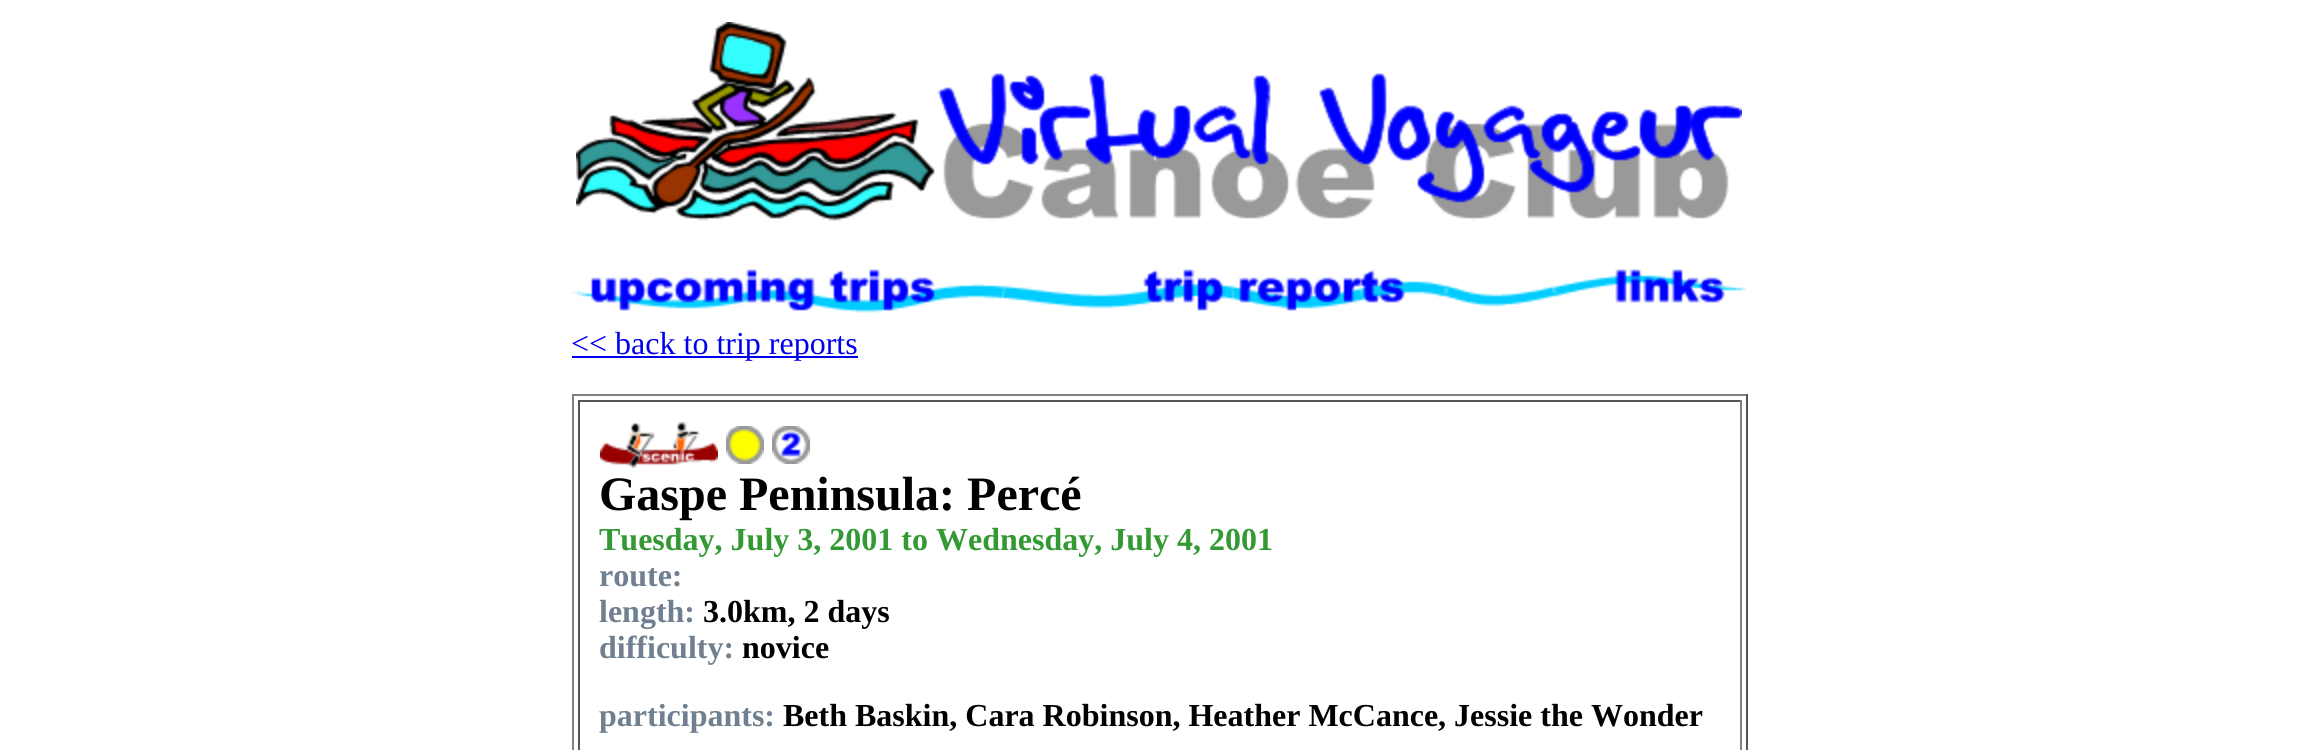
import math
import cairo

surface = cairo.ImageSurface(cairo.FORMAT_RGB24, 2317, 750)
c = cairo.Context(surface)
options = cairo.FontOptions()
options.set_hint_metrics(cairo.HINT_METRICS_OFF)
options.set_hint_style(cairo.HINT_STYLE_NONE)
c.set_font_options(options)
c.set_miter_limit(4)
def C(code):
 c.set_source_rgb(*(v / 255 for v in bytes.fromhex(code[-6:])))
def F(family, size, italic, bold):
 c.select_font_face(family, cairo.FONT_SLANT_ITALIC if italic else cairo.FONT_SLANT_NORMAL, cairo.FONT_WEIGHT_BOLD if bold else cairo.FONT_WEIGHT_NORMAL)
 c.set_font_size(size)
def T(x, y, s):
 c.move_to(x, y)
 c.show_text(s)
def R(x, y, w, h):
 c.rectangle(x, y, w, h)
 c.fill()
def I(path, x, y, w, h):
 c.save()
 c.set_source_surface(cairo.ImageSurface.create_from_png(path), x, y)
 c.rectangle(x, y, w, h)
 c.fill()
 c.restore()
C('ffffff')
c.paint()
I('1.png',576,22,1166,199)
I('2.png',572,269,432,44)
I('3.png',1004,269,442,42)
I('4.png',1446,285,108,22)
I('5.png',1554,269,193,34)
C('0000ee')
R(572,356,286,2)
F('Liberation Serif',32,0,0)
T(571,354,'<< back to trip reports')
C('808080')
R(572,394,1176,2)
C('555555')
R(1746,394,2,356)
C('808080')
R(572,394,2,356)
C('555555')
R(578,400,1164,2)
C('808080')
R(1740,400,2,350)
C('555555')
R(578,400,2,350)
I('6.png',600,422,118,46)
I('7.png',726,426,38,38)
I('8.png',772,426,38,38)
F('Liberation Serif',48,0,1)
C('000000')
T(599,510,'Gaspe Peninsula: Percé')
F('Liberation Serif',32,0,1)
C('339933')
T(599,550,'Tuesday, July 3, 2001 to Wednesday, July 4, 2001')
C('708090')
T(599,586,'route:')
T(599,622,'length:')
C('000000')
T(703,622,'3.0km, 2 days')
C('708090')
T(599,658,'difficulty:')
C('000000')
T(742,658,'novice')
C('708090')
T(599,726,'participants:')
C('000000')
T(783,726,'Beth Baskin, Cara Robinson, Heather McCance, Jessie the Wonder')
surface.write_to_png('o.png')
